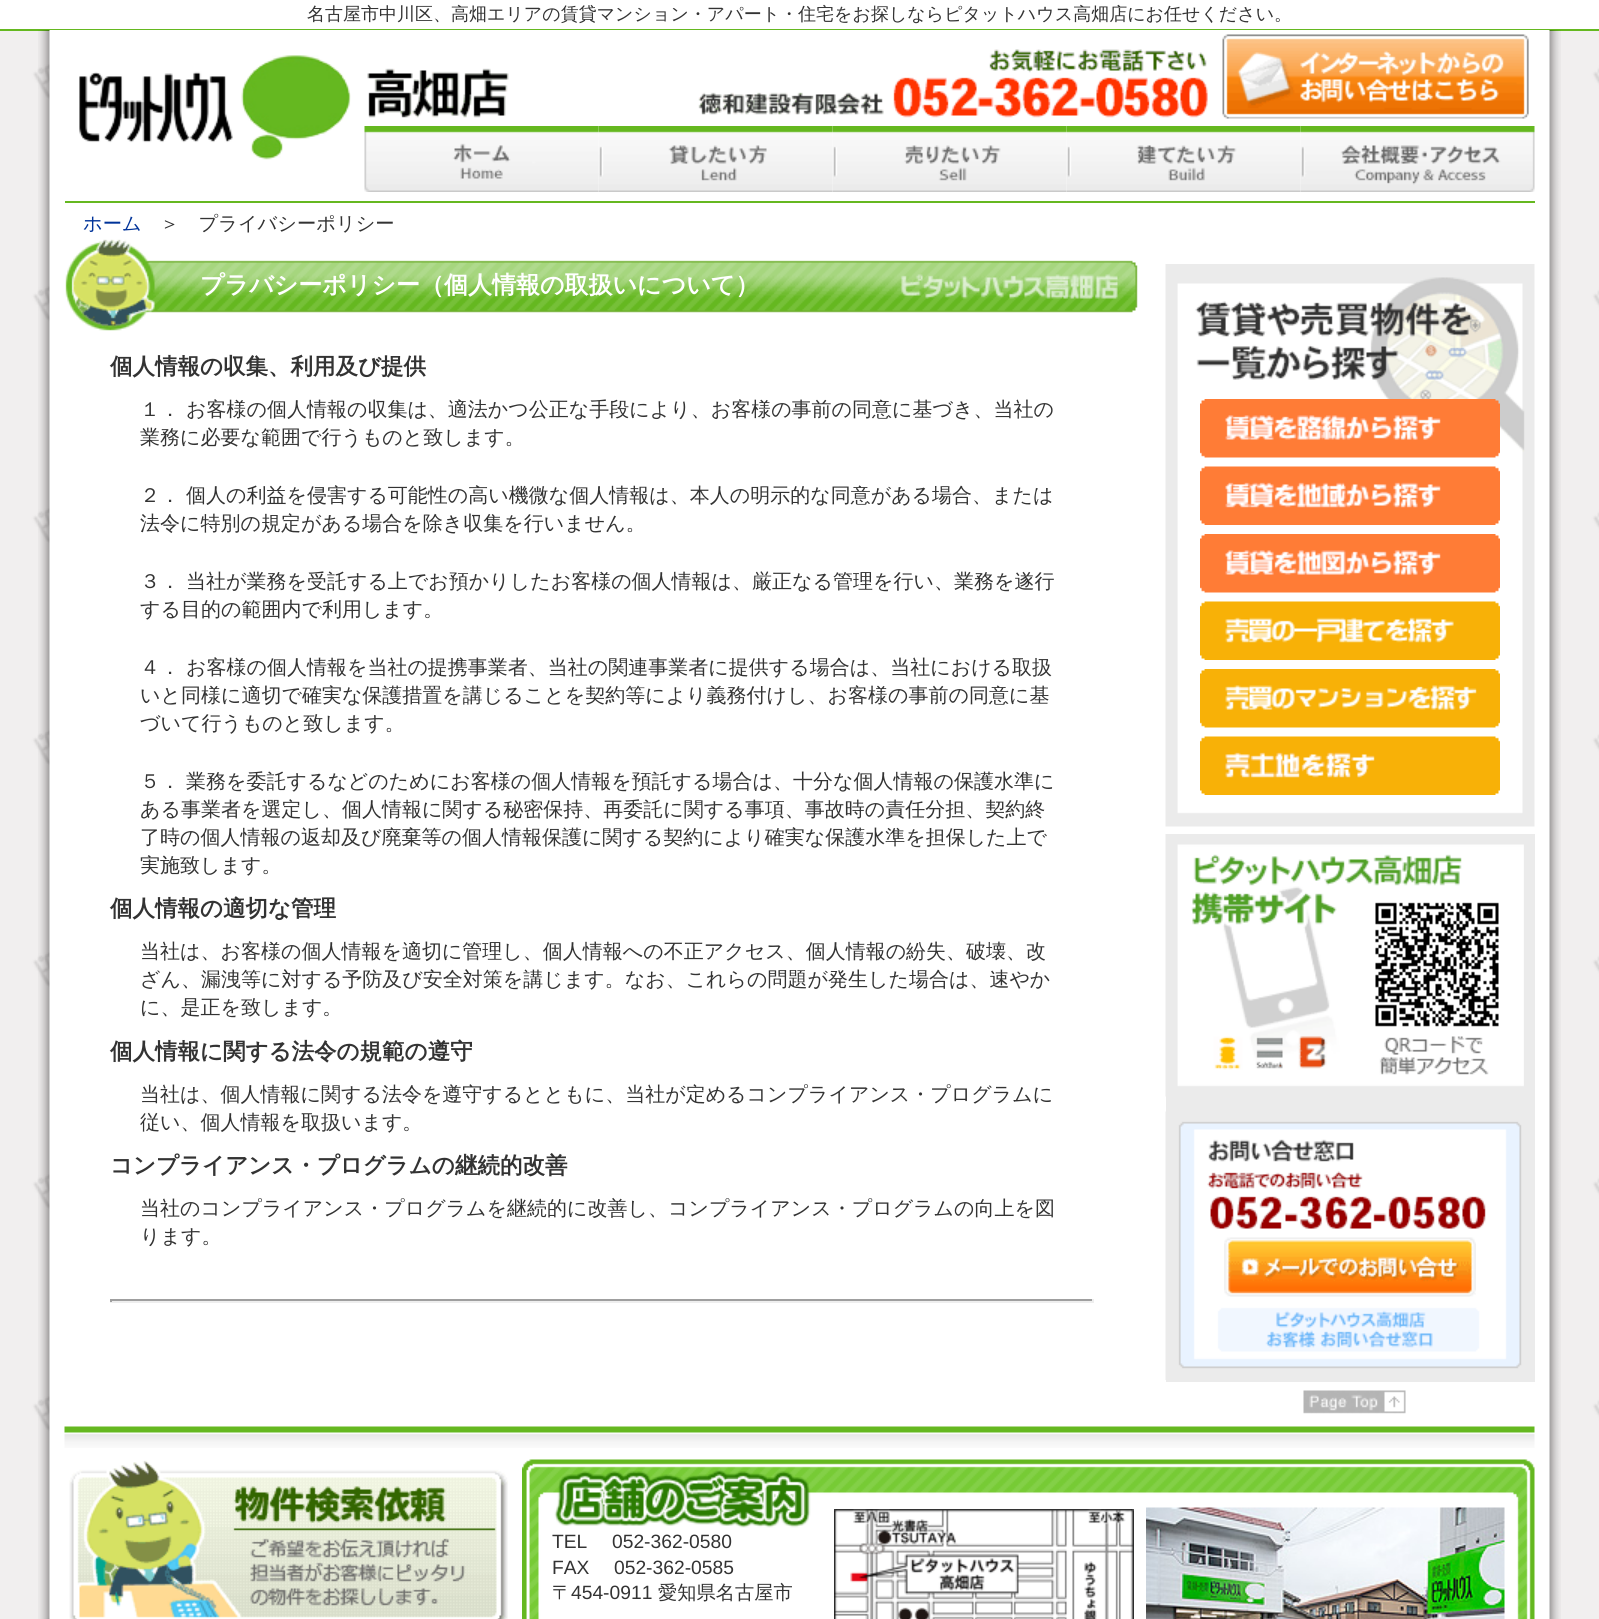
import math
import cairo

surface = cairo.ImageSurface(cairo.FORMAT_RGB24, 1599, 1619)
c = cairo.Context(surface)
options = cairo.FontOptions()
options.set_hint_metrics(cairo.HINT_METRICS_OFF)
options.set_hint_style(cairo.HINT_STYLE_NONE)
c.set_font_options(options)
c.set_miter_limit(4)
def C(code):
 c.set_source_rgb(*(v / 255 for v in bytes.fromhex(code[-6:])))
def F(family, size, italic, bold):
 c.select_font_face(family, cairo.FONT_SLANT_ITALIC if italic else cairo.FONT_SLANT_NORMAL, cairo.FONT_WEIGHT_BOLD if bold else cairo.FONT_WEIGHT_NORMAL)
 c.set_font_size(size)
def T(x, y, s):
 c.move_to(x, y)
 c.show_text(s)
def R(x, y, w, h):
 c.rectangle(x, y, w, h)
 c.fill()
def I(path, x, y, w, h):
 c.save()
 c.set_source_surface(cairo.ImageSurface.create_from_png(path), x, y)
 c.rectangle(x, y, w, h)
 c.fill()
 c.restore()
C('ffffff')
c.paint()
I('1.png',0,31,1599,1588)
C('65b820')
R(0,29,1599,2)
F('WenQuanYi Zen Hei Medium',18,0,0)
C('333333')
T(307,20,'名古屋市中川区、高畑エリアの賃貸マンション・アパート・住宅をお探しならピタットハウス高畑店にお任せください。')
I('2.png',38,30,1523,1589)
I('3.png',79,55,272,105)
I('4.png',367,49,841,69)
I('5.png',1222,34,307,85)
I('6.png',364,126,235,66)
I('7.png',598,126,235,66)
I('8.png',832,126,235,66)
I('9.png',1066,126,235,66)
I('10.png',1300,126,235,66)
I('11.png',64,1426,1471,22)
C('65b820')
R(65,201,1470,2)
F('WenQuanYi Zen Hei Medium',19.25,0,0)
C('003399')
T(83,230,'ホーム')
C('333333')
T(160,230,'＞　プライバシーポリシー')
I('12.png',65,239,1073,92)
F('WenQuanYi Zen Hei',24,0,1)
C('ffffff')
T(200,293,'プラバシーポリシー（個人情報の取扱いについて）')
F('WenQuanYi Zen Hei',22.5,0,1)
C('333333')
T(110,374,'個人情報の収集、利用及び提供')
F('WenQuanYi Zen Hei Medium',20,0,0)
T(140,416,'１． お客様の個人情報の収集は、適法かつ公正な手段により、お客様の事前の同意に基づき、当社の')
T(140,444,'業務に必要な範囲で行うものと致します。')
T(140,502,'２． 個人の利益を侵害する可能性の高い機微な個人情報は、本人の明示的な同意がある場合、または')
T(140,530,'法令に特別の規定がある場合を除き収集を行いません。')
T(140,588,'３． 当社が業務を受託する上でお預かりしたお客様の個人情報は、厳正なる管理を行い、業務を遂行')
T(140,616,'する目的の範囲内で利用します。')
T(140,674,'４． お客様の個人情報を当社の提携事業者、当社の関連事業者に提供する場合は、当社における取扱')
T(140,702,'いと同様に適切で確実な保護措置を講じることを契約等により義務付けし、お客様の事前の同意に基')
T(140,730,'づいて行うものと致します。')
T(140,788,'５． 業務を委託するなどのためにお客様の個人情報を預託する場合は、十分な個人情報の保護水準に')
T(140,816,'ある事業者を選定し、個人情報に関する秘密保持、再委託に関する事項、事故時の責任分担、契約終')
T(140,844,'了時の個人情報の返却及び廃棄等の個人情報保護に関する契約により確実な保護水準を担保した上で')
T(140,872,'実施致します。')
F('WenQuanYi Zen Hei',22.5,0,1)
T(110,916,'個人情報の適切な管理')
F('WenQuanYi Zen Hei Medium',20,0,0)
T(140,958,'当社は、お客様の個人情報を適切に管理し、個人情報への不正アクセス、個人情報の紛失、破壊、改')
T(140,986,'ざん、漏洩等に対する予防及び安全対策を講じます。なお、これらの問題が発生した場合は、速やか')
T(140,1014,'に、是正を致します。')
F('WenQuanYi Zen Hei',22.5,0,1)
T(110,1059,'個人情報に関する法令の規範の遵守')
F('WenQuanYi Zen Hei Medium',20,0,0)
T(140,1101,'当社は、個人情報に関する法令を遵守するとともに、当社が定めるコンプライアンス・プログラムに')
T(140,1129,'従い、個人情報を取扱います。')
F('WenQuanYi Zen Hei',22.5,0,1)
T(110,1173,'コンプライアンス・プログラムの継続的改善')
F('WenQuanYi Zen Hei Medium',20,0,0)
T(140,1215,'当社のコンプライアンス・プログラムを継続的に改善し、コンプライアンス・プログラムの向上を図')
T(140,1243,'ります。')
C('9f9f9f')
R(110,1299,984,2)
C('eeeeee')
R(1092,1299,2,3)
R(110,1301,984,2)
C('9f9f9f')
R(110,1299,2,3)
I('13.png',1165,264,370,563)
I('14.png',1200,399,300,59)
I('15.png',1200,466,300,59)
I('16.png',1200,534,300,59)
I('17.png',1200,601,300,59)
I('18.png',1200,669,300,59)
I('19.png',1200,736,300,59)
C('ebebeb')
R(1166,834,369,548)
I('20.png',1165,834,359,263)
I('21.png',1375,902,124,125)
I('22.png',1165,1111,357,269)
I('23.png',1224,1237,252,60)
I('24.png',1303,1390,103,24)
I('25.png',69,1460,439,159)
I('26.png',522,1459,1013,160)
F('Liberation Sans',19.25,0,0)
C('333333')
T(552,1548,'TEL')
T(612,1548,'052-362-0580')
T(552,1574,'FAX')
T(614,1574,'052-362-0585')
F('WenQuanYi Zen Hei Medium',19.25,0,0)
T(552,1599,'〒')
F('Liberation Sans',19.25,0,0)
T(571,1599,'454-0911')
F('WenQuanYi Zen Hei Medium',19.25,0,0)
T(658,1599,'愛知県名古屋市')
I('27.png',834,1509,300,110)
I('28.png',1146,1507,359,112)
surface.write_to_png('o.png')
